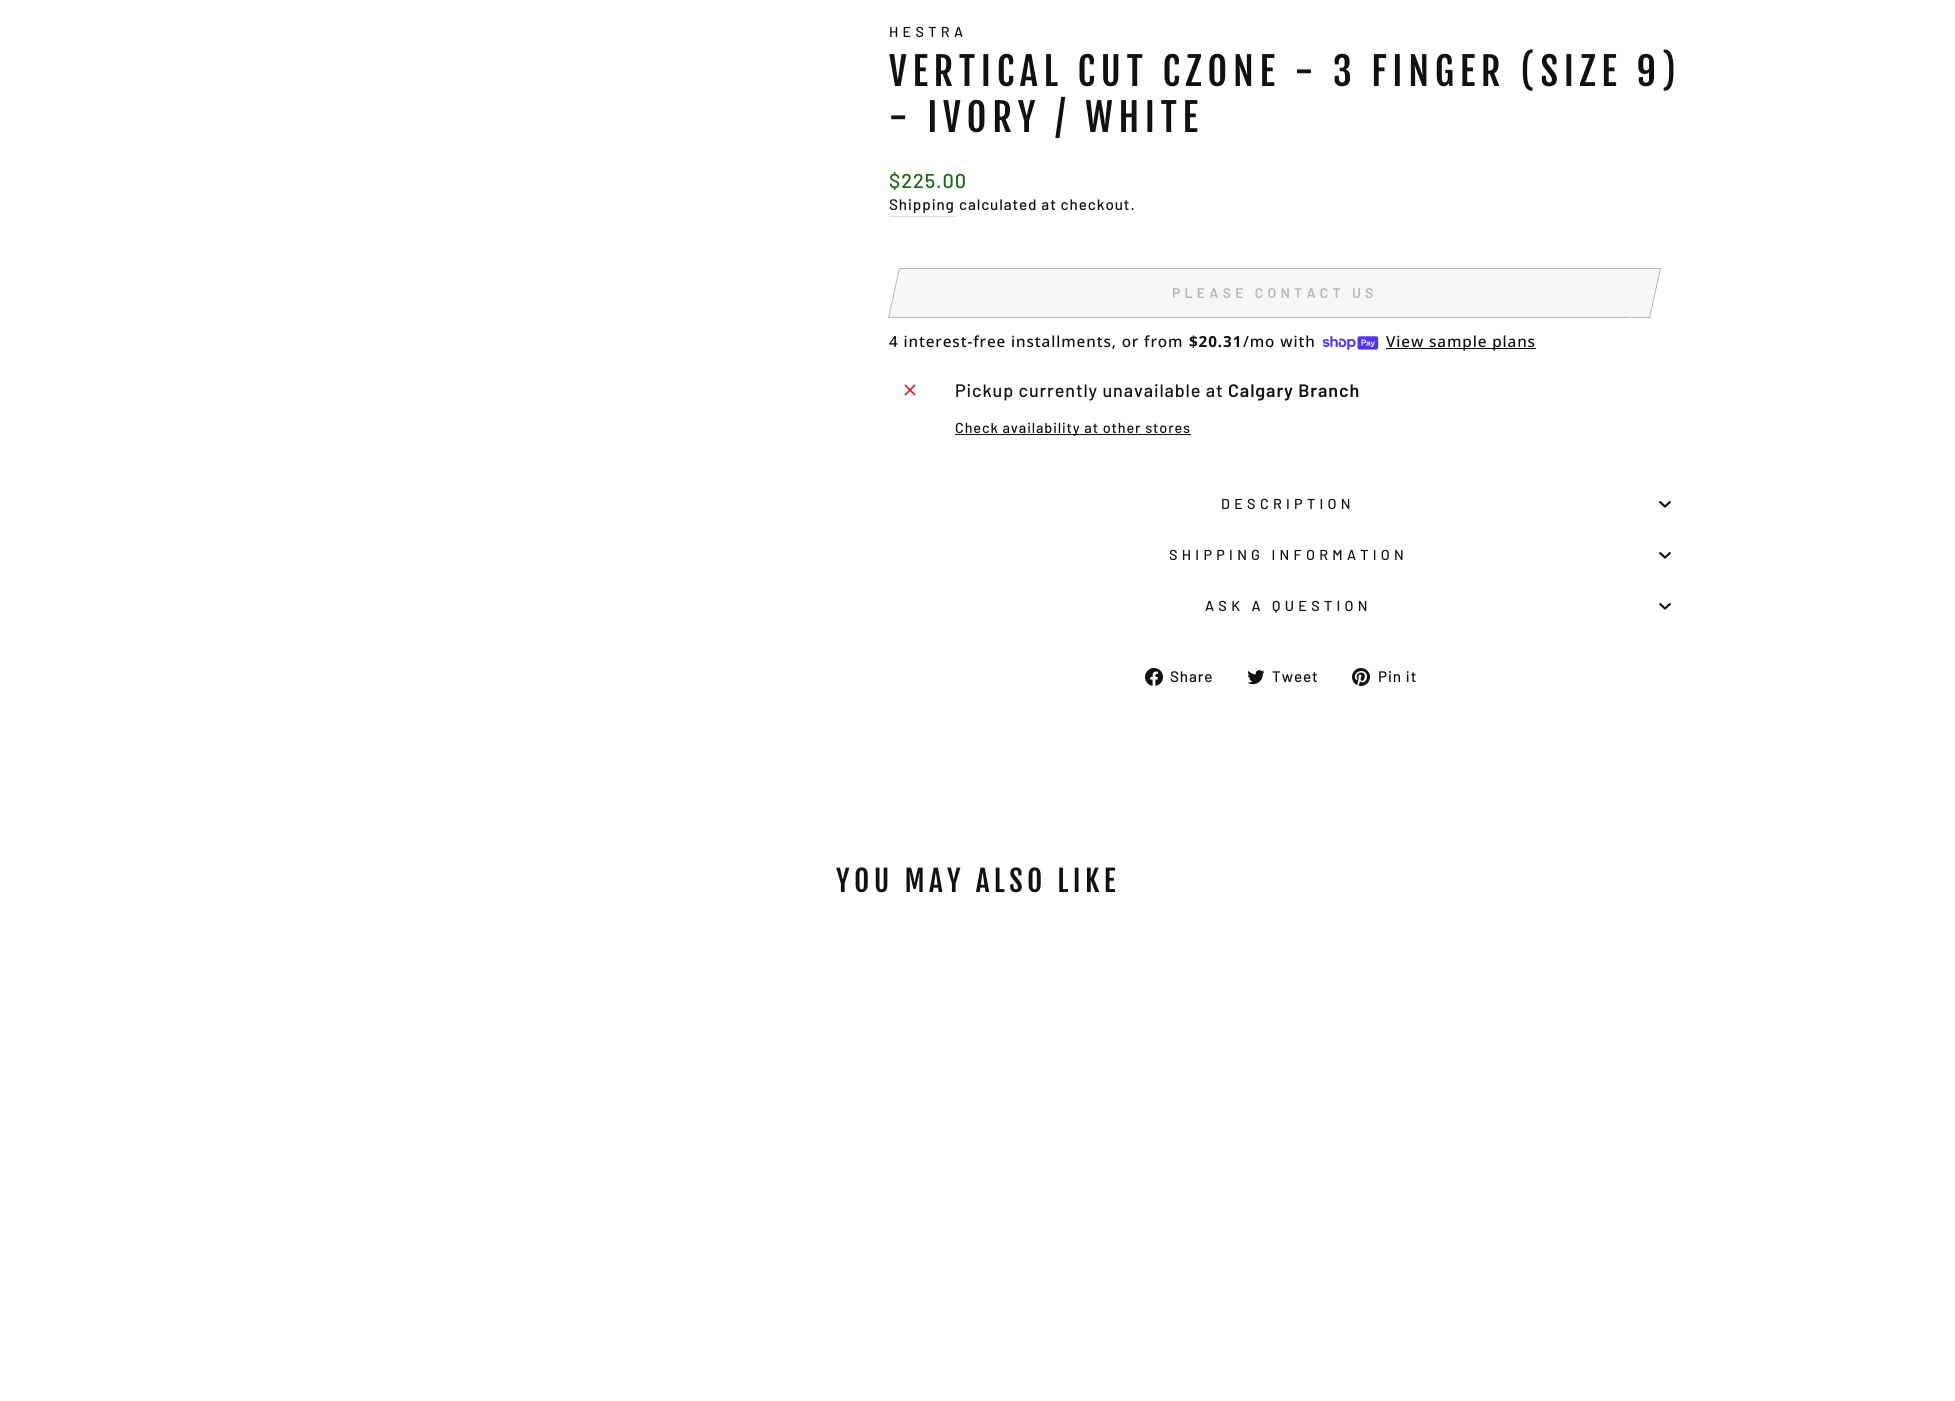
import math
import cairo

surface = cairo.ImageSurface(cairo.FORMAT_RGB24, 1955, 1401)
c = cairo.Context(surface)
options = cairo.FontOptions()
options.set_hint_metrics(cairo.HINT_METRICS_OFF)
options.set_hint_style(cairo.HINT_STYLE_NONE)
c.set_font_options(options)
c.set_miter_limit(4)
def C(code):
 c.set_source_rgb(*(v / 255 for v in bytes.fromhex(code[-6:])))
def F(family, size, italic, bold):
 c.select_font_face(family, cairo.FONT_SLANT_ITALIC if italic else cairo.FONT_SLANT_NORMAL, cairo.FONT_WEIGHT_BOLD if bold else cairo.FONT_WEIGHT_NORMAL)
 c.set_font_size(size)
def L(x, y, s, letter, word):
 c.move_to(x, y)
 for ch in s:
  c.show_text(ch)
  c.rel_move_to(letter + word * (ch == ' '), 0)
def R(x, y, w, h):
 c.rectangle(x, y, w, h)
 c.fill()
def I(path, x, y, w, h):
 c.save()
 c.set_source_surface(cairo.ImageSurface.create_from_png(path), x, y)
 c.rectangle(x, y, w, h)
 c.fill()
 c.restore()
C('ffffff')
c.paint()
F('Barlow Medium',14.4,0,0)
C('111111')
L(889,37,'HESTRA',4.3,0)
F('Fjalla One',38.25,0,0)
L(889,86,'VERTICAL CUT CZONE - 3 FINGER (SIZE 9)',5.75,0)
L(889,132,'- IVORY / WHITE',5.75,0)
F('Barlow Medium',20,0,0)
C('196617')
L(889,188,'$225.00',.9,0)
C('dbdbdb')
R(889,216,66,1)
F('Barlow Medium',15.25,0,0)
C('111111')
L(889,210,'Shipping',.9,0)
L(959,210,'calculated at checkout.',.9,0)
C('f6f6f6')
R(908,269,733,48)
C('b6b6b6')
R(919,268,722,1)
R(908,317,723,1)
C('f6f6f6')
c.new_path()
c.move_to(899,268)
c.line_to(919,268)
c.line_to(908,318)
c.line_to(888,318)
c.close_path()
c.fill()
C('b6b6b6')
R(899,268,20,1)
R(888,317,20,1)
c.new_path()
c.move_to(899,268)
c.line_to(900,268)
c.line_to(889,318)
c.line_to(888,318)
c.close_path()
c.fill()
F('Barlow SemiBold',14,0,0)
L(1172,298,'PLEASE CONTACT US',4.25,0)
C('f6f6f6')
c.new_path()
c.move_to(1641,268)
c.line_to(1661,268)
c.line_to(1650,318)
c.line_to(1630,318)
c.close_path()
c.fill()
C('b6b6b6')
c.new_path()
c.move_to(1641,268)
c.line_to(1661,268)
c.line_to(1660.5,269)
c.line_to(1640.5,269)
c.close_path()
c.fill()
c.new_path()
c.move_to(1660,268)
c.line_to(1661,268)
c.line_to(1650,318)
c.line_to(1649,318)
c.close_path()
c.fill()
R(1631,317,20,1)
F('Noto Sans Medium',15.25,0,0)
C('111111')
L(889,347,'4 interest-free installments, or from',.9,0)
F('Noto Sans',15.25,0,1)
L(1189,347,'$20.31',.9,0)
F('Noto Sans Medium',15.25,0,0)
L(1243,347,'/mo with',.9,0)
I('1.png',1322,336,57,14)
R(1386,348,150,1)
L(1386,347,'View sample plans',.9,0)
I('2.png',904,384,12,12)
F('Barlow Medium',18,0,0)
L(955,397,'Pickup currently unavailable at',.9,0)
F('Barlow SemiBold',18,0,0)
L(1228,397,'Calgary Branch',.9,0)
R(955,434,236,1)
F('Barlow Medium',14.4,0,0)
L(955,433,'Check availability at other stores',.9,0)
L(1221,509,'DESCRIPTION',4.3,0)
c.new_path()
c.move_to(1659.5,501.5)
c.line_to(1665,506.5)
c.line_to(1670.5,501.5)
c.set_line_width(2.1)
c.stroke()
L(1169,560,'SHIPPING INFORMATION',4.3,0)
c.new_path()
c.move_to(1659.5,552.5)
c.line_to(1665,557.5)
c.line_to(1670.5,552.5)
c.stroke()
L(1205,611,'ASK A QUESTION',4.3,0)
c.new_path()
c.move_to(1659.5,603.5)
c.line_to(1665,608.5)
c.line_to(1670.5,603.5)
c.stroke()
I('3.png',1145,668,18,18)
F('Barlow Medium',15.25,0,0)
L(1170,682,'Share',.9,0)
I('4.png',1247,670,18,15)
L(1272,682,'Tweet',.9,0)
I('5.png',1352,668,18,18)
L(1378,682,'Pin it',.9,0)
F('Fjalla One',29.25,0,0)
L(836,892,'YOU MAY ALSO LIKE',4.4,0)
surface.write_to_png('o.png')
